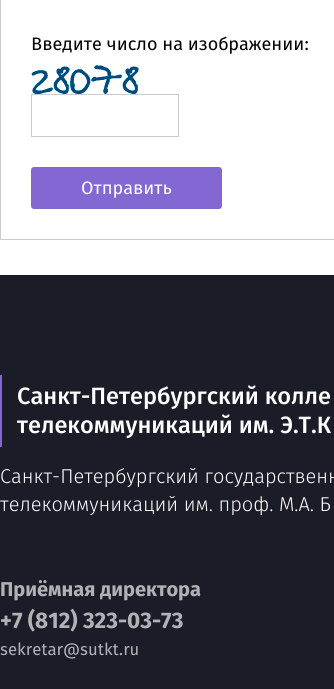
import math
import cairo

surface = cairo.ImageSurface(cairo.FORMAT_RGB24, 334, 689)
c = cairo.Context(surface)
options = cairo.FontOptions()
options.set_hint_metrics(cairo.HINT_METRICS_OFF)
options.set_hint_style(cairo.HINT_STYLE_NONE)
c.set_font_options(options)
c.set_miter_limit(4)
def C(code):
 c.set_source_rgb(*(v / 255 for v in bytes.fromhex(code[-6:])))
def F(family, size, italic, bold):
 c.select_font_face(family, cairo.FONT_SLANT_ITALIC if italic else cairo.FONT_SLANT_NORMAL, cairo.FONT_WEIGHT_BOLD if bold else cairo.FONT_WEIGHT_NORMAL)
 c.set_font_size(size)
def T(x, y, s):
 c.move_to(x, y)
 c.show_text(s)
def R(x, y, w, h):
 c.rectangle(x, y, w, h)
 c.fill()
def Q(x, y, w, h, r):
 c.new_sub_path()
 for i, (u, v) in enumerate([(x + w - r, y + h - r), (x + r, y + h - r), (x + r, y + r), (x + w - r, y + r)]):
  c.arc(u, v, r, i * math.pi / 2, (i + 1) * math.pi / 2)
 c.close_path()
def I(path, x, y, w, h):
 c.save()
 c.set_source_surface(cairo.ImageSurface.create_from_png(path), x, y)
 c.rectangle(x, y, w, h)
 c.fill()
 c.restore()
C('ffffff')
c.paint()
c.rectangle(.5,-.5,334,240)
C('cccccc')
c.set_line_width(1)
c.stroke()
F('Fira Sans',18,0,0)
C('000000')
T(31,50,'Введите число на изображении:')
I('1.png',31,70,22,24)
I('2.png',53,66,17,28)
I('3.png',70,69,21,25)
I('4.png',91,65,31,29)
I('2.png',122,66,17,28)
c.rectangle(31.5,94.5,147,42)
C('cccccc')
c.stroke()
C('8367d3')
Q(31,167,191,42,3)
c.fill()
C('ffffff')
T(81,194,'Отправить')
C('1a1d27')
R(0,275,334,414)
C('8367d3')
R(0,375,2,72)
F('Fira Sans Medium',23.6,0,0)
C('ffffff')
T(17,404,'Санкт-Петербургский колле')
T(17,433,'телекоммуникаций им. Э.Т.К')
F('Fira Sans Light',20,0,0)
T(0,483,'Санкт-Петербургский государственн')
T(0,511,'телекоммуникаций им. проф. М.А. Б')
F('Fira Sans',20,0,1)
C('b1b2b5')
T(0,596,'Приёмная директора')
F('Fira Sans',22.5,0,1)
T(0,628,'+7 (812) 323-03-73')
F('Fira Sans',16.75,0,0)
T(0,655,'sekretar@sutkt.ru')
surface.write_to_png('o.png')
